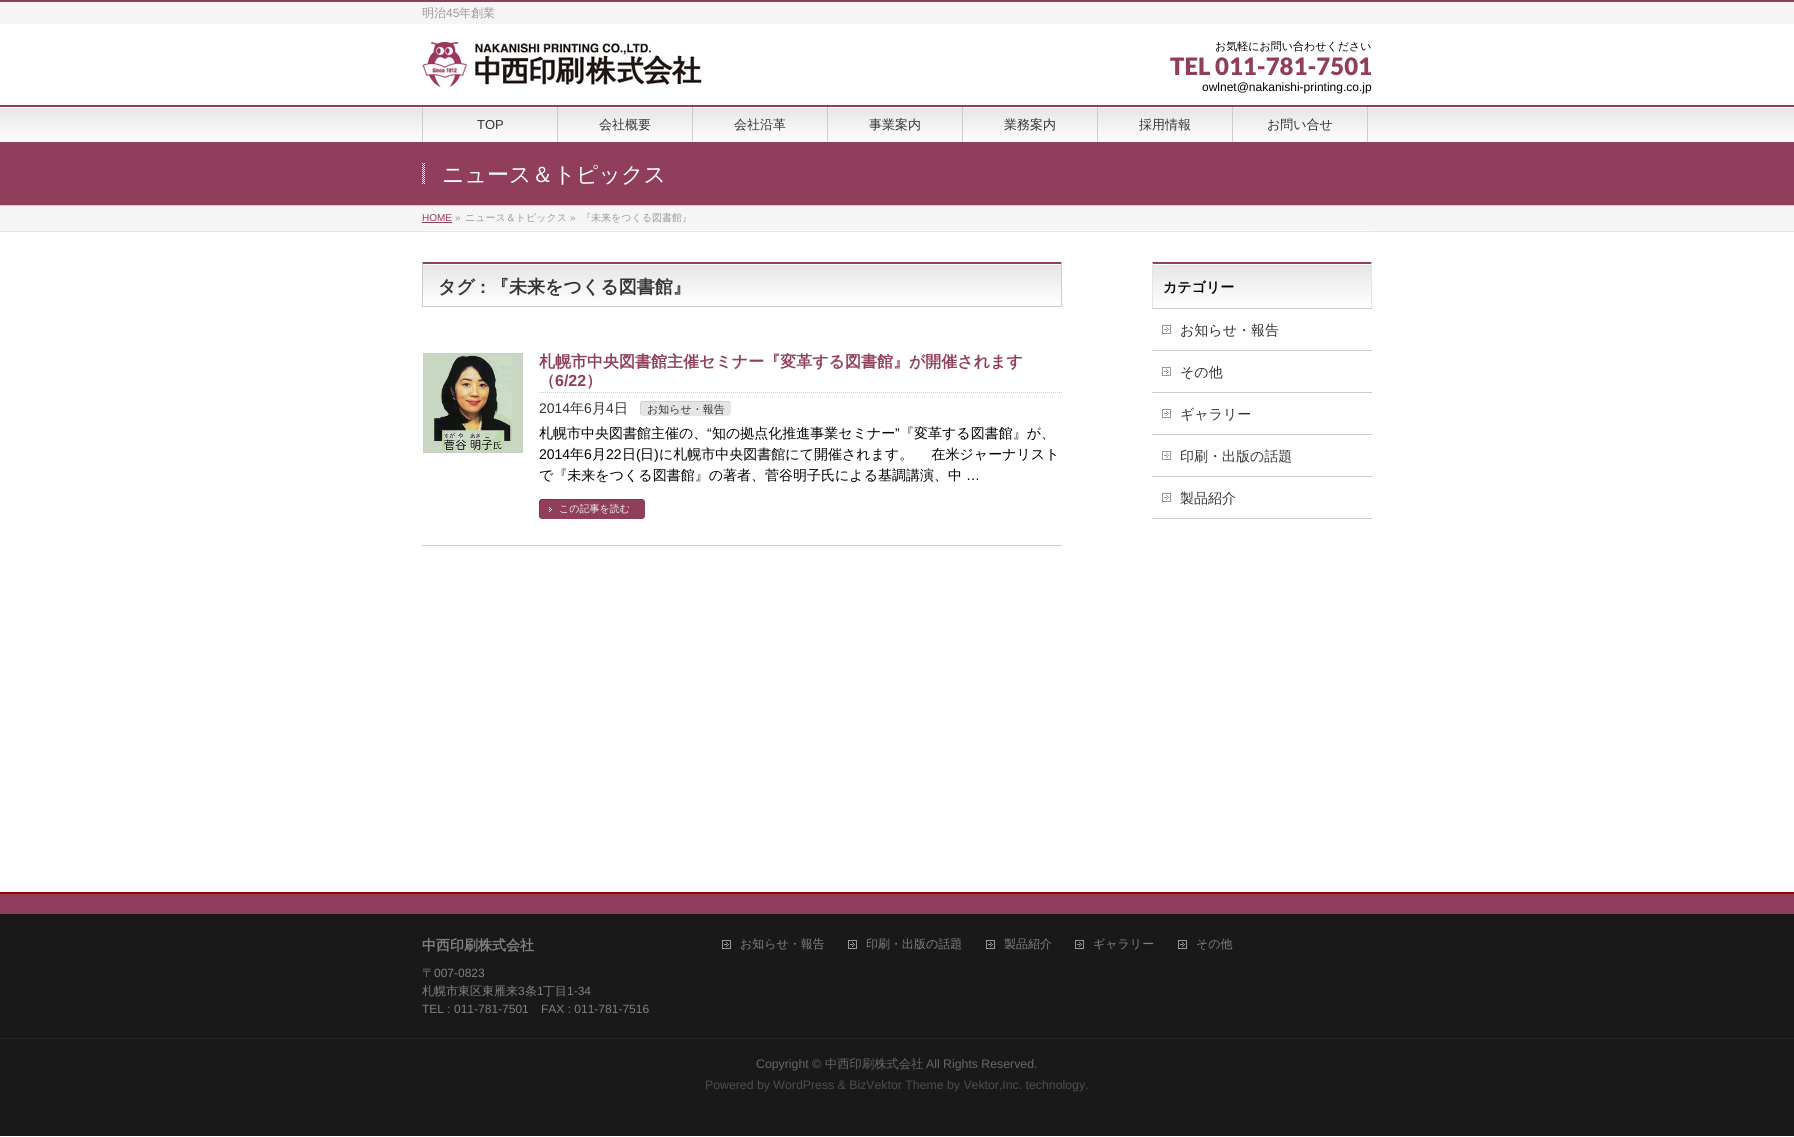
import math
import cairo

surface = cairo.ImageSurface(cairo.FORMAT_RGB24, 1794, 1137)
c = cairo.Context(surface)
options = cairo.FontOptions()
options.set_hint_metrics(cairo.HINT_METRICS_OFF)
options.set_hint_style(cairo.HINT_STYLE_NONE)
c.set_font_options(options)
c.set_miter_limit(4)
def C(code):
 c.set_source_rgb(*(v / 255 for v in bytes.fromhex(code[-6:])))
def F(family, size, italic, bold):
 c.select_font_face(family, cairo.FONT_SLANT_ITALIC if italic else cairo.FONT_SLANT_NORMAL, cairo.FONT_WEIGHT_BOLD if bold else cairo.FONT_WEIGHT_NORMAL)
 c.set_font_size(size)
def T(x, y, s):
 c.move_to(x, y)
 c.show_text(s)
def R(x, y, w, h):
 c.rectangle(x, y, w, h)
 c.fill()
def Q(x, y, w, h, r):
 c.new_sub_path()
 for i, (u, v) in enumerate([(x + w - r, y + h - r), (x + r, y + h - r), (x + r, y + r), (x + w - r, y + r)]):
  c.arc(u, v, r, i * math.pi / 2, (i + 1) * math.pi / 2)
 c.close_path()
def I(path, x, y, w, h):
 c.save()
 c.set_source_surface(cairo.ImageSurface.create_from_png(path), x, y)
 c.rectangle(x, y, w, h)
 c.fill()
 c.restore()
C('ffffff')
c.paint()
C('f5f5f5')
R(0,2,1794,22)
C('913e5c')
R(0,0,1794,2)
F('WenQuanYi Zen Hei Medium',12,0,0)
C('999999')
T(422,17,'明治')
F('Liberation Sans',12,0,0)
T(446,17,'45')
F('WenQuanYi Zen Hei Medium',12,0,0)
T(459,17,'年創業')
I('1.png',422,42,280,45)
F('WenQuanYi Zen Hei Medium',11,0,0)
C('000000')
T(1215,50,'お気軽にお問い合わせください')
F('Lato Black',24,0,0)
C('913e5c')
T(1170,75,'TEL 011-781-7501')
F('Liberation Sans',12,0,0)
C('000000')
T(1202,91,'owlnet@nakanishi-printing.co.jp')
gradient = cairo.LinearGradient(897,107,897,142)
gradient.add_color_stop_rgba(0,0.898,0.898,0.898,1)
gradient.add_color_stop_rgba(1,1,1,1,1)
c.set_source(gradient)
R(0,108,1794,31)
C('913e5c')
R(0,105,1794,2)
C('cccccc')
R(422,107,1,35)
R(557,107,1,35)
F('Liberation Sans',13,0,0)
C('333333')
T(477,129,'TOP')
C('cccccc')
R(692,107,1,35)
F('WenQuanYi Zen Hei Medium',13,0,0)
C('333333')
T(599,129,'会社概要')
C('cccccc')
R(827,107,1,35)
C('333333')
T(734,129,'会社沿革')
C('cccccc')
R(962,107,1,35)
C('333333')
T(869,129,'事業案内')
C('cccccc')
R(1097,107,1,35)
C('333333')
T(1004,129,'業務案内')
C('cccccc')
R(1232,107,1,35)
C('333333')
T(1139,129,'採用情報')
C('cccccc')
R(1367,107,1,35)
C('333333')
T(1267,129,'お問い合せ')
C('913e5c')
R(0,142,1794,63)
C('cccccc')
R(0,205,1794,1)
I('2.png',422,163,3,21)
F('WenQuanYi Zen Hei Medium',22,0,0)
C('ffffff')
T(442,182,'ニュース＆トピックス')
C('f5f5f5')
R(0,206,1794,25)
C('e5e5e5')
R(0,231,1794,1)
C('ffffff')
R(422,230,950,1)
F('Liberation Sans',10,0,0)
C('913e5c')
T(422,221,'HOME')
R(422,222,30,1)
C('999999')
T(455,221,'»')
F('WenQuanYi Zen Hei Medium',10,0,0)
T(465,221,'ニュース＆トピックス')
F('Liberation Sans',10,0,0)
T(570,221,'»')
F('WenQuanYi Zen Hei Medium',10,0,0)
T(581,221,'『未来をつくる図書館』')
gradient = cairo.LinearGradient(423,264,423,306)
gradient.add_color_stop_rgba(0,0.898,0.898,0.898,1)
gradient.add_color_stop_rgba(1,1,1,1,1)
c.set_source(gradient)
R(423,265,638,37)
C('913e5c')
c.new_path()
c.move_to(422,262)
c.line_to(1062,262)
c.line_to(1061,264)
c.line_to(423,264)
c.close_path()
c.fill()
C('cccccc')
c.new_path()
c.move_to(1062,262)
c.line_to(1062,307)
c.line_to(1061,306)
c.line_to(1061,264)
c.close_path()
c.fill()
R(422,306,640,1)
c.new_path()
c.move_to(422,307)
c.line_to(422,262)
c.line_to(423,264)
c.line_to(423,306)
c.close_path()
c.fill()
F('WenQuanYi Zen Hei',18,0,1)
C('333333')
T(438,293,'タグ')
F('Liberation Sans',18,0,1)
T(480,293,':')
F('WenQuanYi Zen Hei',18,0,1)
T(491,293,'『未来をつくる図書館』')
C('cccccc')
R(422,545,640,1)
c.rectangle(423.5,353.5,99,99)
c.set_line_width(1)
c.stroke()
I('3.png',424,354,98,98)
c.new_path()
c.move_to(539,392.5)
c.line_to(1062,392.5)
c.set_dash([1,1])
c.stroke()
F('WenQuanYi Zen Hei',16,0,1)
C('913e5c')
T(539,367,'札幌市中央図書館主催セミナー『変革する図書館』が開催されます')
T(539,386,'（')
F('Liberation Sans',16,0,1)
T(555,386,'6/22')
F('WenQuanYi Zen Hei',16,0,1)
T(586,386,'）')
F('Liberation Sans',14,0,0)
C('333333')
T(539,413,'2014')
F('WenQuanYi Zen Hei Medium',14,0,0)
T(570,413,'年')
F('Liberation Sans',14,0,0)
T(584,413,'6')
F('WenQuanYi Zen Hei Medium',14,0,0)
T(592,413,'月')
F('Liberation Sans',14,0,0)
T(606,413,'4')
F('WenQuanYi Zen Hei Medium',14,0,0)
T(614,413,'日')
C('e5e5e5')
Q(640,401,91,15,3)
c.fill()
c.set_source_rgba(0,0,0,0.1)
c.new_path()
c.move_to(644,402)
c.line_to(730,402)
c.curve_to(730,401,729,401,728,401)
c.line_to(643,401)
c.curve_to(641,401,640,402,640,404)
c.line_to(640,413)
c.curve_to(640,414,640,415,641,415)
c.line_to(641,410)
c.curve_to(641,407,640,402,644,402)
c.close_path()
c.fill()
F('WenQuanYi Zen Hei Medium',11,0,0)
C('333333')
T(647,413,'お知らせ・報告')
F('WenQuanYi Zen Hei Medium',14,0,0)
C('000000')
T(539,438,'札幌市中央図書館主催の、')
F('Liberation Sans',14,0,0)
T(707,438,'“')
F('WenQuanYi Zen Hei Medium',14,0,0)
T(712,438,'知の拠点化推進事業セミナー')
F('Liberation Sans',14,0,0)
T(895,438,'”')
F('WenQuanYi Zen Hei Medium',14,0,0)
T(900,438,'『変革する図書館』が、')
F('Liberation Sans',14,0,0)
T(539,459,'2014')
F('WenQuanYi Zen Hei Medium',14,0,0)
T(570,459,'年')
F('Liberation Sans',14,0,0)
T(584,459,'6')
F('WenQuanYi Zen Hei Medium',14,0,0)
T(592,459,'月')
F('Liberation Sans',14,0,0)
T(606,459,'22')
F('WenQuanYi Zen Hei Medium',14,0,0)
T(622,459,'日')
F('Liberation Sans',14,0,0)
T(636,459,'(')
F('WenQuanYi Zen Hei Medium',14,0,0)
T(640,459,'日')
F('Liberation Sans',14,0,0)
T(654,459,')')
F('WenQuanYi Zen Hei Medium',14,0,0)
T(659,459,'に札幌市中央図書館にて開催されます。 　在米ジャーナリスト')
T(539,480,'で『未来をつくる図書館』の著者、菅谷明子氏による基調講演、中')
F('Liberation Sans',14,0,0)
T(966,480,'…')
C('913e5c')
Q(539,499,106,20,3)
c.fill()
I('4.png',549,507,3,5)
c.set_source_rgba(0,0,0,0.15)
c.new_path()
c.move_to(543,500)
c.line_to(644,500)
c.line_to(642,499)
c.line_to(559,499)
c.curve_to(538,499,539,495,539,511)
c.curve_to(539,513,538,517,540,518)
c.line_to(540,510)
c.curve_to(540,507,538,500,543,500)
c.close_path()
c.fill()
F('WenQuanYi Zen Hei Medium',10,0,0)
C('f5f5f5')
T(559,512,'この記事を読む')
gradient = cairo.LinearGradient(1153,264,1153,308)
gradient.add_color_stop_rgba(0,0.898,0.898,0.898,1)
gradient.add_color_stop_rgba(1,1,1,1,1)
c.set_source(gradient)
R(1153,265,218,39)
C('913e5c')
c.new_path()
c.move_to(1152,262)
c.line_to(1372,262)
c.line_to(1371,264)
c.line_to(1153,264)
c.close_path()
c.fill()
C('e5e5e5')
c.new_path()
c.move_to(1372,262)
c.line_to(1372,309)
c.line_to(1371,308)
c.line_to(1371,264)
c.close_path()
c.fill()
C('cccccc')
R(1152,308,220,1)
C('e5e5e5')
c.new_path()
c.move_to(1152,309)
c.line_to(1152,262)
c.line_to(1153,264)
c.line_to(1153,308)
c.close_path()
c.fill()
F('WenQuanYi Zen Hei',14,0,1)
C('000000')
T(1163,292,'カテゴリー')
C('cccccc')
R(1152,350,220,1)
I('5.png',1162,325,9,9)
F('WenQuanYi Zen Hei Medium',14,0,0)
C('333333')
T(1180,335,'お知らせ・報告')
C('cccccc')
R(1152,392,220,1)
I('5.png',1162,367,9,9)
C('333333')
T(1180,377,'その他')
C('cccccc')
R(1152,434,220,1)
I('5.png',1162,409,9,9)
C('333333')
T(1180,419,'ギャラリー')
C('cccccc')
R(1152,476,220,1)
I('5.png',1162,451,9,9)
C('333333')
T(1180,461,'印刷・出版の話題')
C('cccccc')
R(1152,518,220,1)
I('5.png',1162,493,9,9)
C('333333')
T(1180,503,'製品紹介')
C('913e5c')
R(0,894,1794,20)
C('990000')
R(0,892,1794,2)
C('191919')
R(0,915,1794,123)
C('151515')
R(0,914,1794,1)
F('WenQuanYi Zen Hei',14,0,1)
C('808080')
T(422,950,'中西印刷株式会社')
F('WenQuanYi Zen Hei Medium',12,0,0)
T(422,977,'〒')
F('Liberation Sans',12,0,0)
T(434,977,'007-0823')
F('WenQuanYi Zen Hei Medium',12,0,0)
T(422,995,'札幌市東区東雁来')
F('Liberation Sans',12,0,0)
T(518,995,'3')
F('WenQuanYi Zen Hei Medium',12,0,0)
T(525,995,'条')
F('Liberation Sans',12,0,0)
T(537,995,'1')
F('WenQuanYi Zen Hei Medium',12,0,0)
T(543,995,'丁目')
F('Liberation Sans',12,0,0)
T(567,995,'1-34')
T(422,1013,'TEL : 011-781-7501')
T(541,1013,'FAX : 011-781-7516')
I('6.png',722,940,9,9)
F('WenQuanYi Zen Hei Medium',12,0,0)
T(740,948,'お知らせ・報告')
I('6.png',848,940,9,9)
T(866,948,'印刷・出版の話題')
I('6.png',986,940,9,9)
T(1004,948,'製品紹介')
I('6.png',1075,940,9,9)
T(1093,948,'ギャラリー')
I('6.png',1178,940,9,9)
T(1196,948,'その他')
C('191919')
R(0,1039,1794,97)
C('262626')
R(0,1038,1794,1)
F('Liberation Sans',12.3,0,0)
C('666666')
T(756,1068,'Copyright ©')
F('WenQuanYi Zen Hei Medium',12.3,0,0)
T(825,1068,'中西印刷株式会社')
F('Liberation Sans',12.3,0,0)
T(926,1068,'All Rights Reserved.')
C('4d4d4d')
T(705,1089,'Powered by WordPress & BizVektor Theme by Vektor,Inc. technology.')
surface.write_to_png('o.png')
